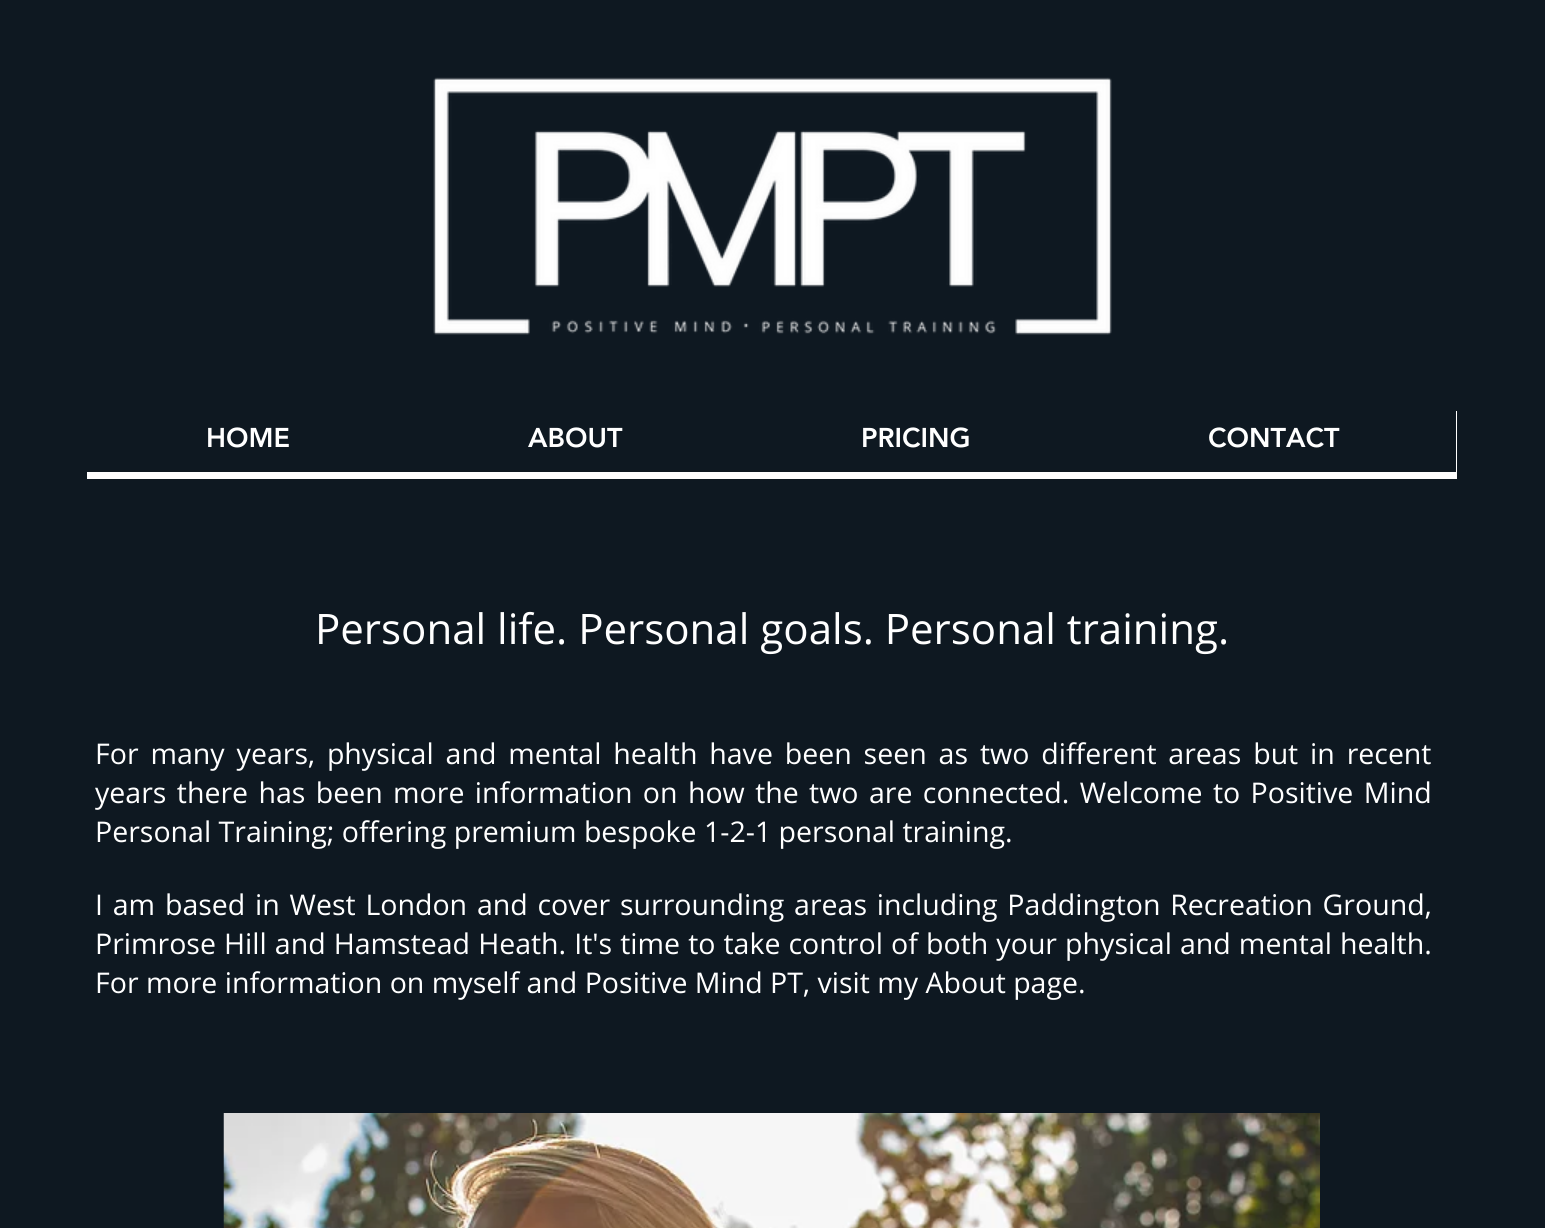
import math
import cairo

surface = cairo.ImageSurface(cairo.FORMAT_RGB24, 1545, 1228)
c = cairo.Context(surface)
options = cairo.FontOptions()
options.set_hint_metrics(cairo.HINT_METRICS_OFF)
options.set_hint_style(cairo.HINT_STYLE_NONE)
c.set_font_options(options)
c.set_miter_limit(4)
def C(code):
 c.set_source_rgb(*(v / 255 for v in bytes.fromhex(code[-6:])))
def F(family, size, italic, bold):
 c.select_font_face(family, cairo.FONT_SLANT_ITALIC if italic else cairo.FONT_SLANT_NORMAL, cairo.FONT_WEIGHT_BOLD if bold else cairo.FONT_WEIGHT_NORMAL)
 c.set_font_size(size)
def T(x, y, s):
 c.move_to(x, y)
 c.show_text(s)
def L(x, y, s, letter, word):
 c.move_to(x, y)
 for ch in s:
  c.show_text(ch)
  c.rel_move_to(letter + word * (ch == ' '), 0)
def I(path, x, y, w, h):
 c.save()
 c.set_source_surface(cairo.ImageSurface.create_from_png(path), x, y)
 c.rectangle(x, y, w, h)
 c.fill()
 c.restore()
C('0e1821')
c.paint()
I('1.png',433,77,679,258)
C('ffffff')
c.new_path()
c.move_to(87,472)
c.line_to(87,479)
c.line_to(1457,479)
c.line_to(1457,411)
c.line_to(1456,411)
c.line_to(1456,472)
c.close_path()
c.fill()
F('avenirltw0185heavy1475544 Black',27,0,0)
T(206,447,'HOME')
T(528,447,'ABOUT')
T(861,447,'PRICING')
T(1208,447,'CONTACT')
F('Open Sans',42,0,0)
T(315,644,'Personal life. Personal goals. Personal training.')
F('Open Sans',28.5,0,0)
L(95,764,'For many years, physical and mental health have been seen as two different areas but in recent',0,4.5)
L(95,803,'years there has been more information on how the two are connected. Welcome to Positive Mind',0,3)
T(95,842,'Personal Training; offering premium bespoke 1-2-1 personal training.')
L(95,915,'I am based in West London and cover surrounding areas including Paddington Recreation Ground,',0,2.4)
L(95,954,'Primrose Hill and Hamstead Heath. It\'s time to take control of both your physical and mental health.',0,.7)
T(95,993,'For more information on myself and Positive Mind PT, visit my About page.')
I('2.png',223,1113,1097,115)
surface.write_to_png('o.png')
